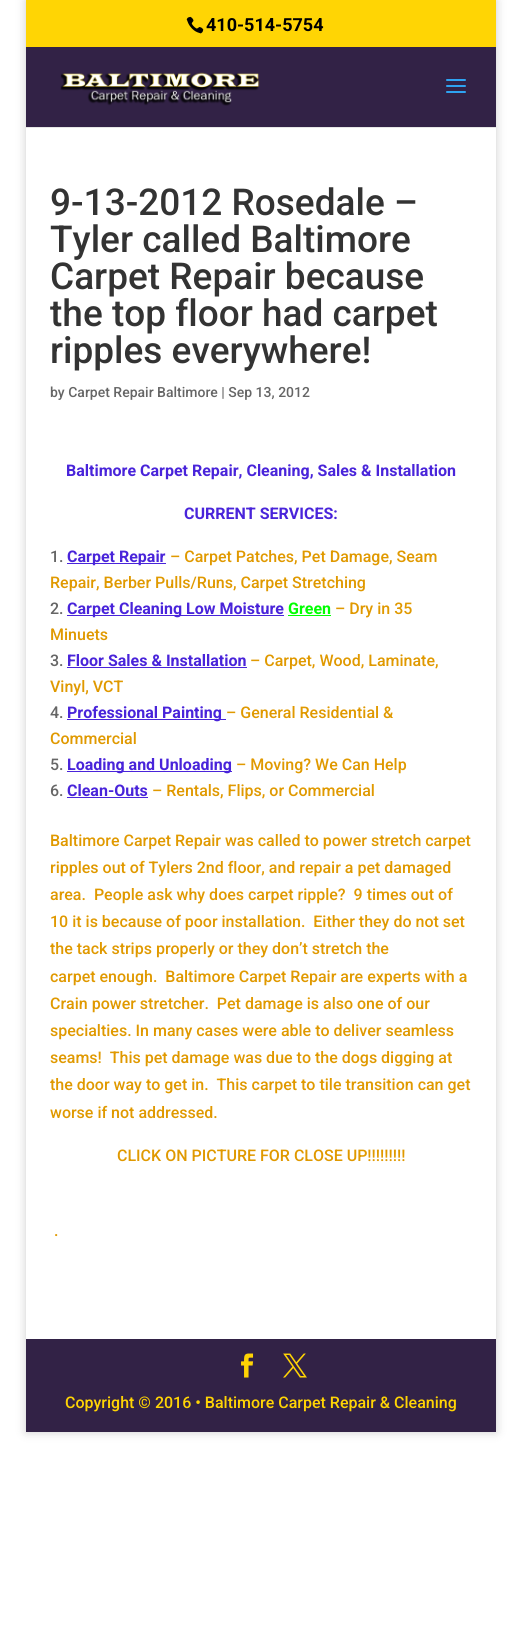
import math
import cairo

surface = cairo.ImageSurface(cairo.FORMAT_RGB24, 522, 1632)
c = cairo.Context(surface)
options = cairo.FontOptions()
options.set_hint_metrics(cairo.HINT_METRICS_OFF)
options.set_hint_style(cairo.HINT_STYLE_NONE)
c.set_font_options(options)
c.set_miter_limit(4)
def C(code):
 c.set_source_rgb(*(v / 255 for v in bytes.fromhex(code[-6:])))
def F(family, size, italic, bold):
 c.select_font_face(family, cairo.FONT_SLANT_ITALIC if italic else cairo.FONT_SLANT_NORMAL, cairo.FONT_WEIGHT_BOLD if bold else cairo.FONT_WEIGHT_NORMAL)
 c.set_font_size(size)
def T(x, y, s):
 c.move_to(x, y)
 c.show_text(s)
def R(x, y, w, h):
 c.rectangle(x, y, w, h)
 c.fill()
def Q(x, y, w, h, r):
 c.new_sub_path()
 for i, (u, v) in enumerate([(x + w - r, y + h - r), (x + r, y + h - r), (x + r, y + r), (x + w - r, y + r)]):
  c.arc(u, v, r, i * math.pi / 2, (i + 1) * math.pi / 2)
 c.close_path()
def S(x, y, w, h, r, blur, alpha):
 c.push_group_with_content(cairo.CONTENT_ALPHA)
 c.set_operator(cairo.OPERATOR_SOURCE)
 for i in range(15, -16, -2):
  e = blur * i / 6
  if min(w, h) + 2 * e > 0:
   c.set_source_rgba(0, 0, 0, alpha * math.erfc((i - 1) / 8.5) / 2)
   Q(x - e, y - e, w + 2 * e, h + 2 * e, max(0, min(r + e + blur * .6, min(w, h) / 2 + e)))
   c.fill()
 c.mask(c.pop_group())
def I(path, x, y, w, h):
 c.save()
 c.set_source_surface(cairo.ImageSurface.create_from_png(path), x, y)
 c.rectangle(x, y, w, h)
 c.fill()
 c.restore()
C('ffffff')
c.paint()
c.save()
c.set_fill_rule(cairo.FILL_RULE_EVEN_ODD)
c.new_path()
c.move_to(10,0)
c.line_to(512,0)
c.line_to(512,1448)
c.line_to(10,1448)
c.close_path()
c.move_to(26,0)
c.line_to(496,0)
c.line_to(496,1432)
c.line_to(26,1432)
c.close_path()
c.clip()
C('000000')
S(26,0,470,1432,0,5,.2)
c.restore()
C('ffd504')
R(26,0,470,47)
I('1.png',186,16,18,18)
F('Roboto',18,0,1)
C('000000')
T(206,31,'410-514-5754')
C('e6e6e6')
R(26,127,470,1)
C('322246')
R(26,47,470,80)
I('2.png',60,72,200,34)
I('3.png',446,79,20,14)
F('Roboto Medium',37,0,0)
C('333333')
T(50,215,'9-13-2012 Rosedale –')
T(50,252,'Tyler called Baltimore')
T(50,289,'Carpet Repair because')
T(50,326,'the top floor had carpet')
T(50,363,'ripples everywhere!')
F('Roboto Medium',14,0,0)
C('666666')
T(50,397,'by Carpet Repair Baltimore | Sep 13, 2012')
F('Roboto',16,0,1)
C('4924da')
T(66,476,'Baltimore Carpet Repair, Cleaning, Sales & Installation')
T(184,519,'CURRENT SERVICES:')
F('Roboto Medium',16,0,0)
C('666666')
T(50,562,'1.')
C('4924da')
R(67,563,99,1)
F('Roboto',16,0,1)
T(67,562,'Carpet Repair')
F('Roboto Medium',16,0,0)
C('e09900')
T(170,562,'– Carpet Patches, Pet Damage, Seam')
T(50,588,'Repair, Berber Pulls/Runs, Carpet Stretching')
C('666666')
T(50,614,'2.')
C('4924da')
R(67,615,217,1)
F('Roboto',16,0,1)
T(67,614,'Carpet Cleaning Low Moisture')
C('00ff00')
T(288,614,'Green')
R(288,615,43,1)
F('Roboto Medium',16,0,0)
C('e09900')
T(335,614,'– Dry in 35')
T(50,640,'Minuets')
C('666666')
T(50,666,'3.')
F('Roboto',16,0,1)
C('4924da')
T(67,666,'Floor Sales & Installation')
R(67,667,180,1)
F('Roboto Medium',16,0,0)
C('e09900')
T(250,666,'– Carpet, Wood, Laminate,')
T(50,692,'Vinyl, VCT')
C('666666')
T(50,718,'4.')
C('4924da')
R(67,719,159,1)
F('Roboto',16,0,1)
T(67,718,'Professional Painting')
F('Roboto Medium',16,0,0)
C('e09900')
T(226,718,'– General Residential &')
T(50,744,'Commercial')
C('666666')
T(50,770,'5.')
C('4924da')
R(67,771,165,1)
F('Roboto',16,0,1)
T(67,770,'Loading and Unloading')
F('Roboto Medium',16,0,0)
C('e09900')
T(236,770,'– Moving? We Can Help')
C('666666')
T(50,796,'6.')
F('Roboto',16,0,1)
C('4924da')
T(67,796,'Clean-Outs')
R(67,797,81,1)
F('Roboto Medium',16,0,0)
C('e09900')
T(152,796,'– Rentals, Flips, or Commercial')
T(50,846,'Baltimore Carpet Repair was called to power stretch carpet')
T(50,873,'ripples out of Tylers 2nd floor, and repair a pet damaged')
T(50,900,'area.  People ask why does carpet ripple?  9 times out of')
T(50,927,'10 it is because of poor installation.  Either they do not set')
T(50,954,'the tack strips properly or they don’t stretch the')
T(50,982,'carpet enough.  Baltimore Carpet Repair are experts with a')
T(50,1009,'Crain power stretcher.  Pet damage is also one of our')
T(50,1036,'specialties. In many cases were able to deliver seamless')
T(50,1063,'seams!  This pet damage was due to the dogs digging at')
T(50,1090,'the door way to get in.  This carpet to tile transition can get')
T(50,1118,'worse if not addressed.')
T(117,1161,'CLICK ON PICTURE FOR CLOSE UP!!!!!!!!!')
T(54,1236,'.')
C('322246')
R(26,1339,470,93)
I('4.png',241,1353,13,25)
I('5.png',283,1353,24,25)
C('ffd404')
T(65,1408,'Copyright © 2016 • Baltimore Carpet Repair & Cleaning')
surface.write_to_png('o.png')
